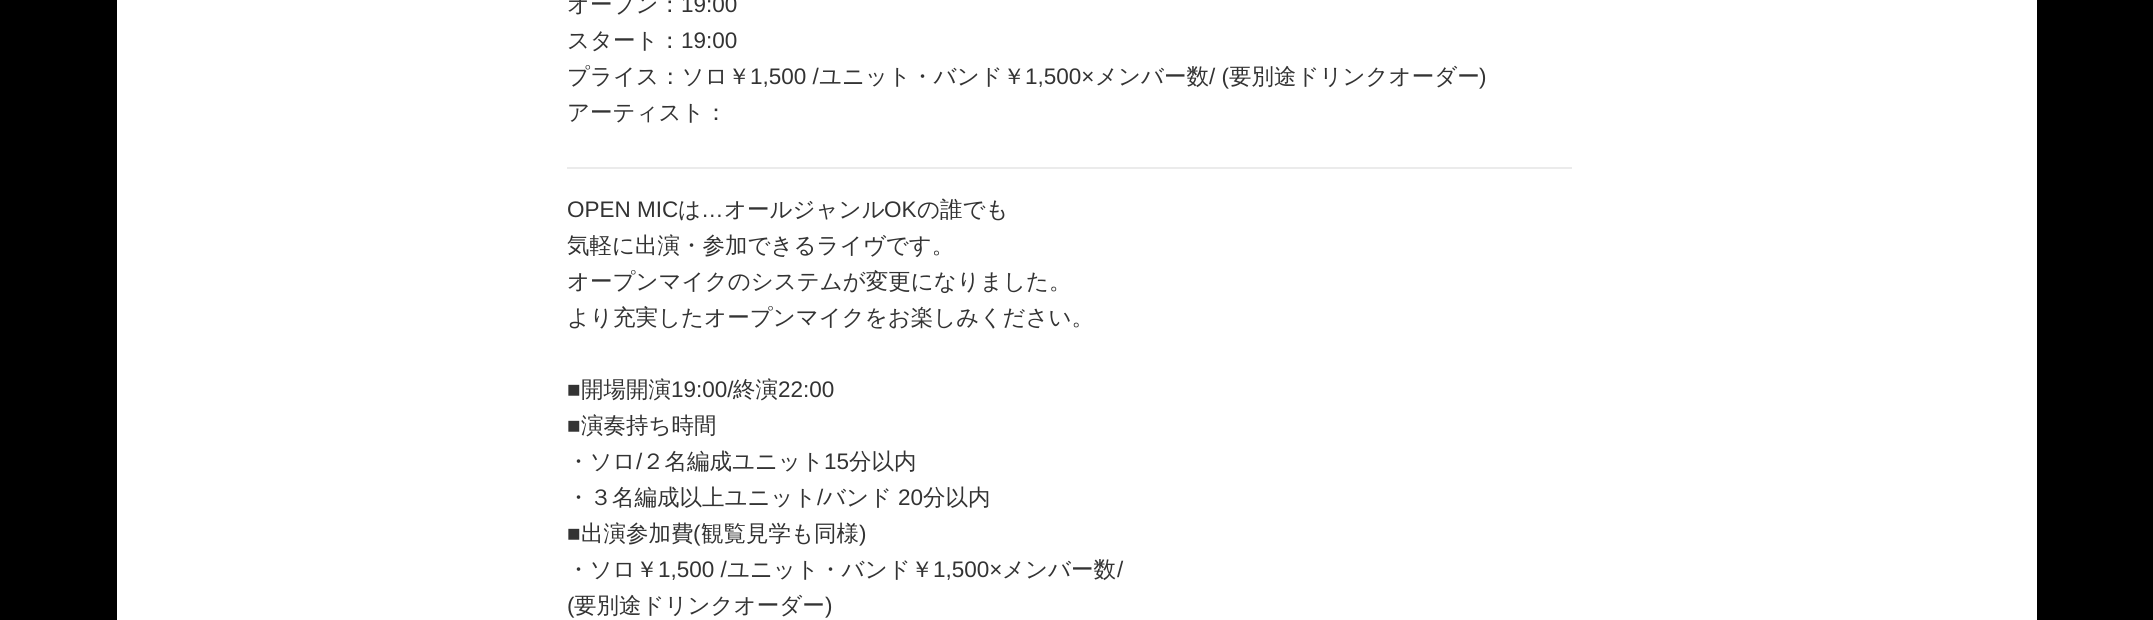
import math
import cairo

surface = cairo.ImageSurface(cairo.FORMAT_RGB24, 2153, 620)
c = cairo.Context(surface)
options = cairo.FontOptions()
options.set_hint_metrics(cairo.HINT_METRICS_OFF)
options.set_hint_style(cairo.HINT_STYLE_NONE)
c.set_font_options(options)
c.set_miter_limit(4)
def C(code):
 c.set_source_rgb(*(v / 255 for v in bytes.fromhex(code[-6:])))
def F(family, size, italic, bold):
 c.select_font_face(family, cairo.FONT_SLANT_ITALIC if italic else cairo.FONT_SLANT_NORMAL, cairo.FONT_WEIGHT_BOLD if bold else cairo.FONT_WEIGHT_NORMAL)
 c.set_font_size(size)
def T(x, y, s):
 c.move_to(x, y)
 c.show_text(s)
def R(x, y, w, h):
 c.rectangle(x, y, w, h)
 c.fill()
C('000000')
c.paint()
C('ffffff')
R(117,0,1920,620)
F('WenQuanYi Zen Hei Medium',22.5,0,0)
C('333333')
T(567,12,'オープン：')
F('Liberation Sans',22.5,0,0)
T(681,12,'19:00')
F('WenQuanYi Zen Hei Medium',22.5,0,0)
T(567,48,'スタート：')
F('Liberation Sans',22.5,0,0)
T(681,48,'19:00')
F('WenQuanYi Zen Hei Medium',22.5,0,0)
T(567,84,'プライス：ソロ￥')
F('Liberation Sans',22.5,0,0)
T(750,84,'1,500 /')
F('WenQuanYi Zen Hei Medium',22.5,0,0)
T(819,84,'ユニット・バンド￥')
F('Liberation Sans',22.5,0,0)
T(1025,84,'1,500×')
F('WenQuanYi Zen Hei Medium',22.5,0,0)
T(1095,84,'メンバー数')
F('Liberation Sans',22.5,0,0)
T(1209,84,'/ (')
F('WenQuanYi Zen Hei Medium',22.5,0,0)
T(1229,84,'要別途ドリンクオーダー')
F('Liberation Sans',22.5,0,0)
T(1479,84,')')
F('WenQuanYi Zen Hei Medium',22.5,0,0)
T(567,120,'アーティスト：')
C('ebebeb')
R(567,167,1005,2)
F('Liberation Sans',22.5,0,0)
C('333333')
T(567,217,'OPEN MIC')
F('WenQuanYi Zen Hei Medium',22.5,0,0)
T(678,217,'は')
F('Liberation Sans',22.5,0,0)
T(701,217,'…')
F('WenQuanYi Zen Hei Medium',22.5,0,0)
T(724,217,'オールジャンル')
F('Liberation Sans',22.5,0,0)
T(884,217,'OK')
F('WenQuanYi Zen Hei Medium',22.5,0,0)
T(917,217,'の誰でも')
T(567,253,'気軽に出演・参加できるライヴです。')
T(567,289,'オープンマイクのシステムが変更になりました。')
T(567,325,'より充実したオープンマイクをお楽しみください。')
F('Liberation Sans',22.5,0,0)
T(567,397,'■')
F('WenQuanYi Zen Hei Medium',22.5,0,0)
T(581,397,'開場開演')
F('Liberation Sans',22.5,0,0)
T(671,397,'19:00/')
F('WenQuanYi Zen Hei Medium',22.5,0,0)
T(733,397,'終演')
F('Liberation Sans',22.5,0,0)
T(778,397,'22:00')
T(567,433,'■')
F('WenQuanYi Zen Hei Medium',22.5,0,0)
T(581,433,'演奏持ち時間')
T(567,469,'・ソロ')
F('Liberation Sans',22.5,0,0)
T(636,469,'/')
F('WenQuanYi Zen Hei Medium',22.5,0,0)
T(642,469,'２名編成ユニット')
F('Liberation Sans',22.5,0,0)
T(824,469,'15')
F('WenQuanYi Zen Hei Medium',22.5,0,0)
T(849,469,'分以内')
T(567,505,'・３名編成以上ユニット')
F('Liberation Sans',22.5,0,0)
T(817,505,'/')
F('WenQuanYi Zen Hei Medium',22.5,0,0)
T(823,505,'バンド')
F('Liberation Sans',22.5,0,0)
T(898,505,'20')
F('WenQuanYi Zen Hei Medium',22.5,0,0)
T(923,505,'分以内')
F('Liberation Sans',22.5,0,0)
T(567,541,'■')
F('WenQuanYi Zen Hei Medium',22.5,0,0)
T(581,541,'出演参加費')
F('Liberation Sans',22.5,0,0)
T(693,541,'(')
F('WenQuanYi Zen Hei Medium',22.5,0,0)
T(701,541,'観覧見学も同様')
F('Liberation Sans',22.5,0,0)
T(859,541,')')
F('WenQuanYi Zen Hei Medium',22.5,0,0)
T(567,577,'・ソロ￥')
F('Liberation Sans',22.5,0,0)
T(658,577,'1,500 /')
F('WenQuanYi Zen Hei Medium',22.5,0,0)
T(727,577,'ユニット・バンド￥')
F('Liberation Sans',22.5,0,0)
T(933,577,'1,500×')
F('WenQuanYi Zen Hei Medium',22.5,0,0)
T(1002,577,'メンバー数')
F('Liberation Sans',22.5,0,0)
T(1117,577,'/')
T(567,613,'(')
F('WenQuanYi Zen Hei Medium',22.5,0,0)
T(574,613,'要別途ドリンクオーダー')
F('Liberation Sans',22.5,0,0)
T(825,613,')')
surface.write_to_png('o.png')
